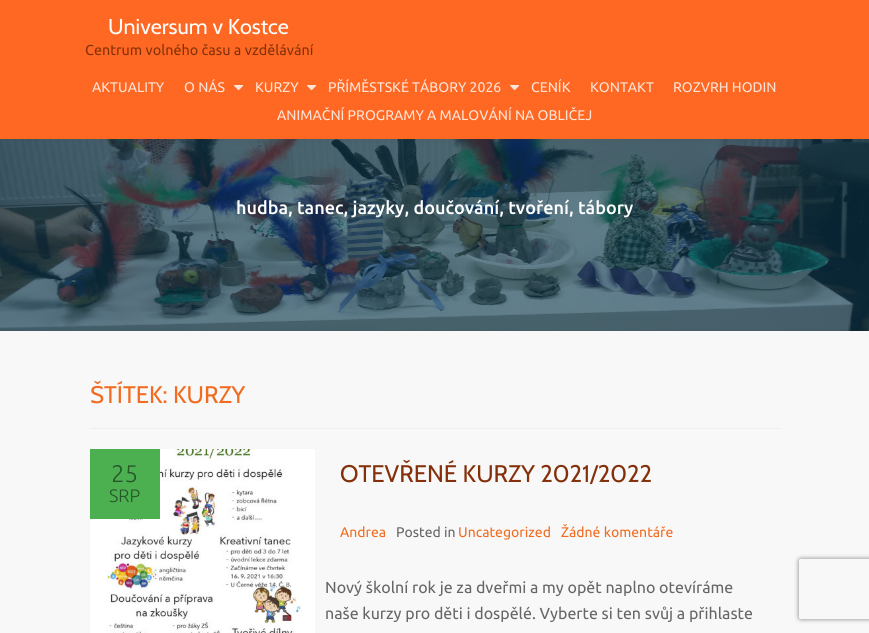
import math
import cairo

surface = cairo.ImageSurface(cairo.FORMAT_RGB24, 869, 633)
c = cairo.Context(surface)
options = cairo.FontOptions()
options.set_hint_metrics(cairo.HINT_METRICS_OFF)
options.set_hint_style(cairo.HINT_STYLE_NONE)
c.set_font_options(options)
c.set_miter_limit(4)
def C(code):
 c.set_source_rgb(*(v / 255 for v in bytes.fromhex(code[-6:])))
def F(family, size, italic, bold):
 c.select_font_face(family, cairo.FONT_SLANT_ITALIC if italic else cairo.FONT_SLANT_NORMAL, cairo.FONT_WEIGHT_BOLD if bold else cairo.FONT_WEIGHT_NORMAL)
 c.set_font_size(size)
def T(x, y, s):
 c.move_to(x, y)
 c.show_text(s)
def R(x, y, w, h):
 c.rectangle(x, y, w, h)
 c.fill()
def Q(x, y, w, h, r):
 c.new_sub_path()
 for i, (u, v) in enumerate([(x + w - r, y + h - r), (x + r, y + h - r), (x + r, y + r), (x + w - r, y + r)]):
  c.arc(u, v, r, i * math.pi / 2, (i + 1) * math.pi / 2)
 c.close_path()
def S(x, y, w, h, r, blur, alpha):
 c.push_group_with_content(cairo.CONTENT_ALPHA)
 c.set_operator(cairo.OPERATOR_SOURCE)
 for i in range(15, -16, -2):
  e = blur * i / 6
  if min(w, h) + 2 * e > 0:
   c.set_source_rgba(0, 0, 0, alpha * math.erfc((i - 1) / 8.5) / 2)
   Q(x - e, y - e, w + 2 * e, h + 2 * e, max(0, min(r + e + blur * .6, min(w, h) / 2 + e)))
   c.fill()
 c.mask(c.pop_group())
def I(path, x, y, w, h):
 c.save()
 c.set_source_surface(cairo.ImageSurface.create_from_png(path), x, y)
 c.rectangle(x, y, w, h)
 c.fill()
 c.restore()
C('f8f8f8')
c.paint()
I('2.png',0,139,869,192)
C('323232')
S(0,-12,869,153,0,4,.08)
C('ff6822')
R(0,0,869,139)
F('Cabin',21.5,0,0)
C('ffffff')
T(108,34,'Universum v Kostce')
F('Ubuntu',14.4,0,0)
C('84310b')
T(85,55,'Centrum volného času a vzdělávání')
F('Ubuntu',14,0,0)
C('ffe3d7')
T(92,92,'AKTUALITY')
T(184,92,'O NÁS')
I('1.png',234,85,10,6)
T(255,92,'KURZY')
I('1.png',307,85,10,6)
T(328,92,'PŘÍMĚSTSKÉ TÁBORY 2026')
I('1.png',510,85,10,6)
T(531,92,'CENÍK')
T(590,92,'KONTAKT')
T(673,92,'ROZVRH HODIN')
T(277,120,'ANIMAČNÍ PROGRAMY A MALOVÁNÍ NA OBLIČEJ')
F('Ubuntu Medium',18,0,0)
C('ffffff')
T(236,214,'hudba, tanec, jazyky, doučování, tvoření, tábory')
C('eeeeee')
R(90,428,690,1)
F('Cabin',24,0,0)
C('f16c20')
T(90,403,'ŠTÍTEK: KURZY')
I('3.png',90,449,225,184)
C('4caf50')
R(90,449,70,70)
F('Ubuntu Light',24,0,0)
C('26562a')
T(111,482,'25')
F('Ubuntu Light',18,0,0)
T(109,502,'SRP')
F('Cabin',24,0,0)
C('84310b')
T(340,482,'OTEVŘENÉ KURZY 2021/2022')
F('Ubuntu',14,0,0)
C('f16c20')
T(340,537,'Andrea')
C('666666')
T(396,537,'Posted in')
C('f16c20')
T(458,537,'Uncategorized')
T(561,537,'Žádné komentáře')
F('Ubuntu',16,0,0)
C('666666')
T(325,593,'Nový školní rok je za dveřmi a my opět naplno otevíráme')
T(325,619,'naše kurzy pro děti i dospělé. Vyberte si ten svůj a přihlaste')
c.save()
c.set_fill_rule(cairo.FILL_RULE_EVEN_ODD)
c.new_path()
c.move_to(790,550)
c.line_to(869,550)
c.line_to(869,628)
c.line_to(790,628)
c.close_path()
c.move_to(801,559)
c.line_to(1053,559)
c.curve_to(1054,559,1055,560,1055,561)
c.line_to(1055,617)
c.curve_to(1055,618,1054,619,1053,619)
c.line_to(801,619)
c.curve_to(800,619,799,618,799,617)
c.line_to(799,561)
c.curve_to(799,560,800,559,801,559)
c.close_path()
c.clip()
C('808080')
S(799,559,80,60,2,2.5,1)
c.restore()
surface.write_to_png('o.png')
